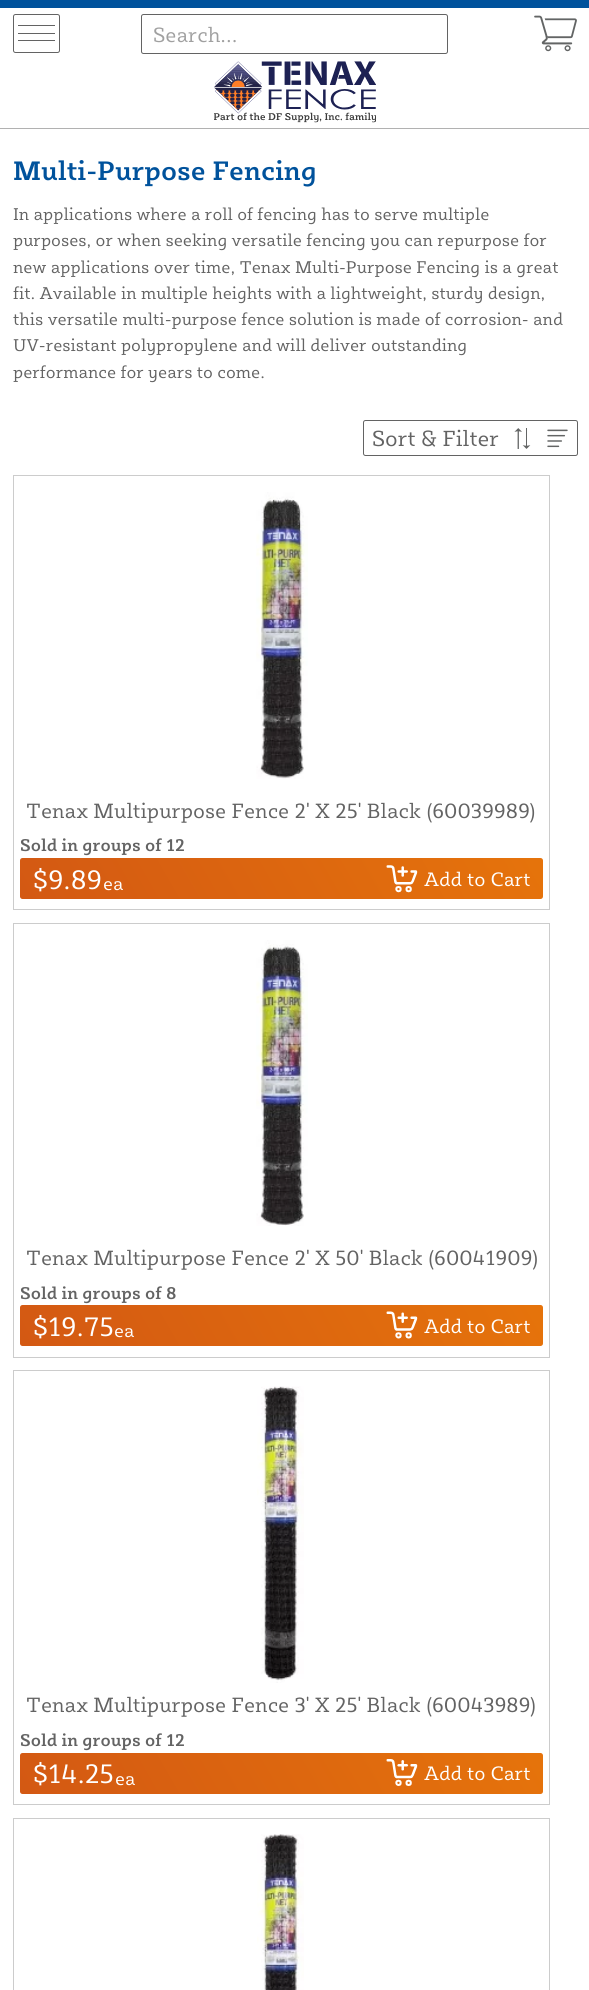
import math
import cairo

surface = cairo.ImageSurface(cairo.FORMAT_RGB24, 589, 1990)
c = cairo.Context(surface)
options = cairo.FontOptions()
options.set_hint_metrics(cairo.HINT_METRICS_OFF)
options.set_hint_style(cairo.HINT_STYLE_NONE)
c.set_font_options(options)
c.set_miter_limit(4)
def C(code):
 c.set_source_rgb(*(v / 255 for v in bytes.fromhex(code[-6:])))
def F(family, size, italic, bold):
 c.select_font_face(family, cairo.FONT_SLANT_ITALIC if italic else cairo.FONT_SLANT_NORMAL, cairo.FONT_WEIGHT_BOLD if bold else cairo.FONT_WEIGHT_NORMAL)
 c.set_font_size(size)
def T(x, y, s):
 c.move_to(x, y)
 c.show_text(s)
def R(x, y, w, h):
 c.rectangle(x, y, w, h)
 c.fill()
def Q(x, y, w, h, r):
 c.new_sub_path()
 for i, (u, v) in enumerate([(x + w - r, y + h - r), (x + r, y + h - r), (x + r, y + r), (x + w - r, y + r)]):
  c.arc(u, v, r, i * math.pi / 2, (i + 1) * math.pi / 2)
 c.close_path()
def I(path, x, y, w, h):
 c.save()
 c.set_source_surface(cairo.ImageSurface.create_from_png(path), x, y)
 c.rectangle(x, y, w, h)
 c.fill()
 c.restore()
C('ffffff')
c.paint()
C('00529c')
R(0,0,589,8)
C('b1b1b1')
R(0,128,589,1)
Q(13.5,14.5,46,38,2)
C('636363')
c.set_line_width(1)
c.stroke()
R(18,25,37,1)
R(18,33,37,1)
R(18,40,37,1)
Q(141.5,14.5,306,39,2)
c.stroke()
F('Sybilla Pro',21.25,0,0)
C('a0a0a0')
T(153,42,'Search...')
I('1.png',534,15,43,37)
I('2.png',214,61,162,62)
F('Sybilla Pro Medium',27.5,0,0)
C('00529c')
T(13,180,'Multi-Purpose Fencing')
F('Sybilla Pro',17.5,0,0)
C('636363')
T(13,220,'In applications where a roll of fencing has to serve multiple')
T(13,246,'purposes, or when seeking versatile fencing you can repurpose for')
T(13,273,'new applications over time, Tenax Multi-Purpose Fencing is a great')
T(13,299,'fit. Available in multiple heights with a lightweight, sturdy design,')
T(13,325,'this versatile multi-purpose fence solution is made of corrosion- and')
T(13,351,'UV-resistant polypropylene and will deliver outstanding')
T(13,378,'performance for years to come.')
Q(363.5,420.5,214,35,2)
c.stroke()
F('Sybilla Pro',22.5,0,0)
T(372,446,'Sort & Filter')
I('3.png',514,428,17,21)
I('4.png',547,429,21,19)
c.rectangle(13.5,475.5,536,434)
C('cccccc')
c.stroke()
I('5.png',256,492,52,287)
F('Sybilla Pro',21.25,0,0)
C('636363')
T(26,818,'Tenax Multipurpose Fence 2\' X 25\' Black (60039989)')
F('Sybilla Pro Medium',17.5,0,0)
T(20,851,'Sold in groups of 12')
gradient = cairo.LinearGradient(-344,1103,436,653)
gradient.add_color_stop_rgba(0,0.812,0.325,0.082,1)
gradient.add_color_stop_rgba(.13,0.812,0.325,0.082,1)
gradient.add_color_stop_rgba(.28,0.902,0.455,0.043,1)
gradient.add_color_stop_rgba(.35,0.812,0.325,0.082,1)
gradient.add_color_stop_rgba(1,0.902,0.455,0.043,1)
c.set_source(gradient)
Q(20,858,523,41,2.5)
c.fill()
I('6.png',386,865,32,28)
F('Sybilla Pro',27.5,0,0)
C('ffffff')
T(33,889,'$9.89')
F('Sybilla Pro',19,0,0)
T(103,890,'ea')
F('Sybilla Pro',20,0,0)
T(424,886,'Add to Cart')
c.rectangle(13.5,923.5,536,434)
C('cccccc')
c.stroke()
I('7.png',256,940,52,286)
F('Sybilla Pro',21.25,0,0)
C('636363')
T(26,1265,'Tenax Multipurpose Fence 2\' X 50\' Black (60041909)')
F('Sybilla Pro Medium',17.5,0,0)
T(20,1299,'Sold in groups of 8')
gradient = cairo.LinearGradient(-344,1551,436,1100)
gradient.add_color_stop_rgba(0,0.812,0.325,0.082,1)
gradient.add_color_stop_rgba(.13,0.812,0.325,0.082,1)
gradient.add_color_stop_rgba(.28,0.902,0.455,0.043,1)
gradient.add_color_stop_rgba(.35,0.812,0.325,0.082,1)
gradient.add_color_stop_rgba(1,0.902,0.455,0.043,1)
c.set_source(gradient)
Q(20,1305,523,41,2.5)
c.fill()
I('8.png',386,1311,32,28)
F('Sybilla Pro',27.5,0,0)
C('ffffff')
T(33,1336,'$19.75')
F('Sybilla Pro',19,0,0)
T(114,1337,'ea')
F('Sybilla Pro',20,0,0)
T(424,1333,'Add to Cart')
c.rectangle(13.5,1370.5,536,434)
C('cccccc')
c.stroke()
I('9.png',257,1386,47,297)
F('Sybilla Pro',21.25,0,0)
C('636363')
T(26,1712,'Tenax Multipurpose Fence 3\' X 25\' Black (60043989)')
F('Sybilla Pro Medium',17.5,0,0)
T(20,1746,'Sold in groups of 12')
gradient = cairo.LinearGradient(-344,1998,436,1548)
gradient.add_color_stop_rgba(0,0.812,0.325,0.082,1)
gradient.add_color_stop_rgba(.13,0.812,0.325,0.082,1)
gradient.add_color_stop_rgba(.28,0.902,0.455,0.043,1)
gradient.add_color_stop_rgba(.35,0.812,0.325,0.082,1)
gradient.add_color_stop_rgba(1,0.902,0.455,0.043,1)
c.set_source(gradient)
Q(20,1753,523,41,2.5)
c.fill()
I('10.png',386,1759,32,27)
F('Sybilla Pro',27.5,0,0)
C('ffffff')
T(33,1783,'$14.25')
F('Sybilla Pro',19,0,0)
T(115,1785,'ea')
F('Sybilla Pro',20,0,0)
T(424,1780,'Add to Cart')
c.rectangle(13.5,1818.5,536,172)
C('cccccc')
c.stroke()
I('11.png',257,1834,47,156)
surface.write_to_png('o.png')
